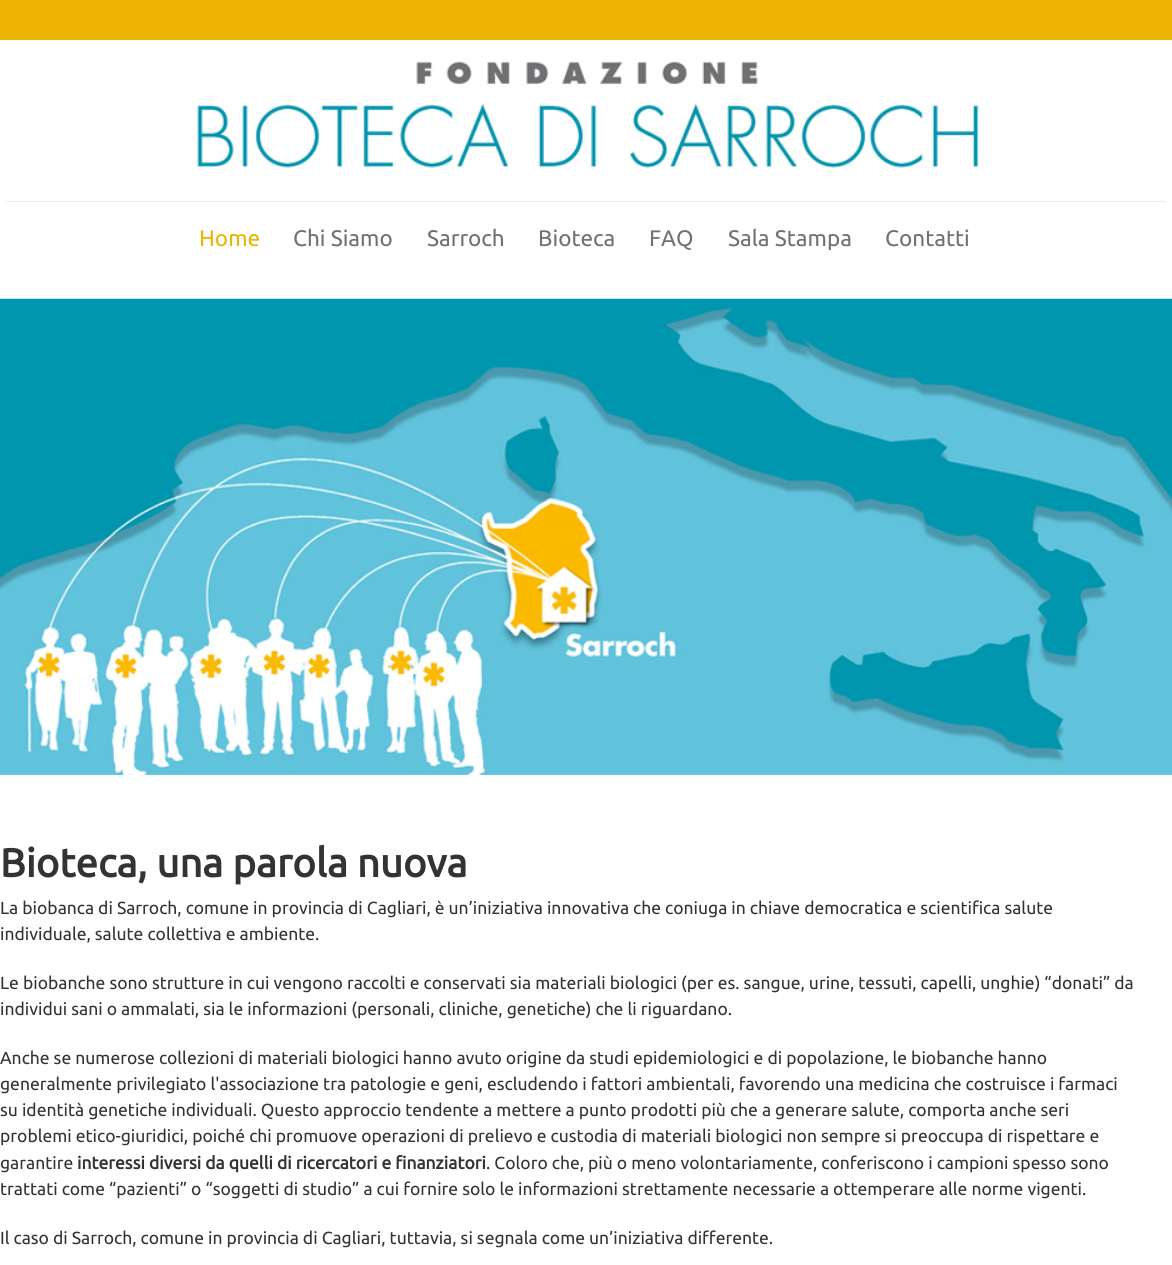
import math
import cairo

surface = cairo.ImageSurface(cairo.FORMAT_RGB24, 1172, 1265)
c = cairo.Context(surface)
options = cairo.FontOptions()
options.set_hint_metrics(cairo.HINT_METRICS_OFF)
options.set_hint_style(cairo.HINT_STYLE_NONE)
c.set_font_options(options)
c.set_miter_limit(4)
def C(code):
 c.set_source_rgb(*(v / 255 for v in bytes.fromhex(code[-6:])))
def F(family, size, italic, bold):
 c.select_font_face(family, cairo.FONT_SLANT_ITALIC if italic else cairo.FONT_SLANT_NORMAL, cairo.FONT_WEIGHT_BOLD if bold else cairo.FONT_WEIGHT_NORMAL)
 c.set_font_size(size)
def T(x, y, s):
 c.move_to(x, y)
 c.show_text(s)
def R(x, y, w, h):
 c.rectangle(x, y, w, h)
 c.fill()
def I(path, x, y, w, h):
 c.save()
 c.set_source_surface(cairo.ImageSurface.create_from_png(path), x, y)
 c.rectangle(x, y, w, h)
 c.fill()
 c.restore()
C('ffffff')
c.paint()
C('edb304')
R(0,0,1172,40)
I('1.png',197,61,782,107)
C('eeeeee')
R(6,201,1160,1)
F('Ubuntu',22.5,0,0)
C('edb304')
T(199,246,'Home')
C('717171')
T(293,246,'Chi Siamo')
T(427,246,'Sarroch')
T(538,246,'Bioteca')
T(649,246,'FAQ')
T(728,246,'Sala Stampa')
T(885,246,'Contatti')
I('2.png',0,298,1172,477)
F('Ubuntu',40,0,1)
C('333333')
T(0,877,'Bioteca, una parola nuova')
F('Ubuntu',17.5,0,0)
T(0,914,'La biobanca di Sarroch, comune in provincia di Cagliari, è un’iniziativa innovativa che coniuga in chiave democratica e scientifica salute')
T(0,940,'individuale, salute collettiva e ambiente.')
T(0,989,'Le biobanche sono strutture in cui vengono raccolti e conservati sia materiali biologici (per es. sangue, urine, tessuti, capelli, unghie) “donati” da')
T(0,1015,'individui sani o ammalati, sia le informazioni (personali, cliniche, genetiche) che li riguardano.')
T(0,1064,'Anche se numerose collezioni di materiali biologici hanno avuto origine da studi epidemiologici e di popolazione, le biobanche hanno')
T(0,1090,'generalmente privilegiato l\'associazione tra patologie e geni, escludendo i fattori ambientali, favorendo una medicina che costruisce i farmaci')
T(0,1116,'su identità genetiche individuali. Questo approccio tendente a mettere a punto prodotti più che a generare salute, comporta anche seri')
T(0,1142,'problemi etico-giuridici, poiché chi promuove operazioni di prelievo e custodia di materiali biologici non sempre si preoccupa di rispettare e')
T(0,1169,'garantire')
F('Ubuntu',17.5,0,1)
T(77,1169,'interessi diversi da quelli di ricercatori e finanziatori')
F('Ubuntu',17.5,0,0)
T(486,1169,'. Coloro che, più o meno volontariamente, conferiscono i campioni spesso sono')
T(0,1195,'trattati come “pazienti” o “soggetti di studio” a cui fornire solo le informazioni strettamente necessarie a ottemperare alle norme vigenti.')
T(0,1244,'Il caso di Sarroch, comune in provincia di Cagliari, tuttavia, si segnala come un’iniziativa differente.')
surface.write_to_png('o.png')
